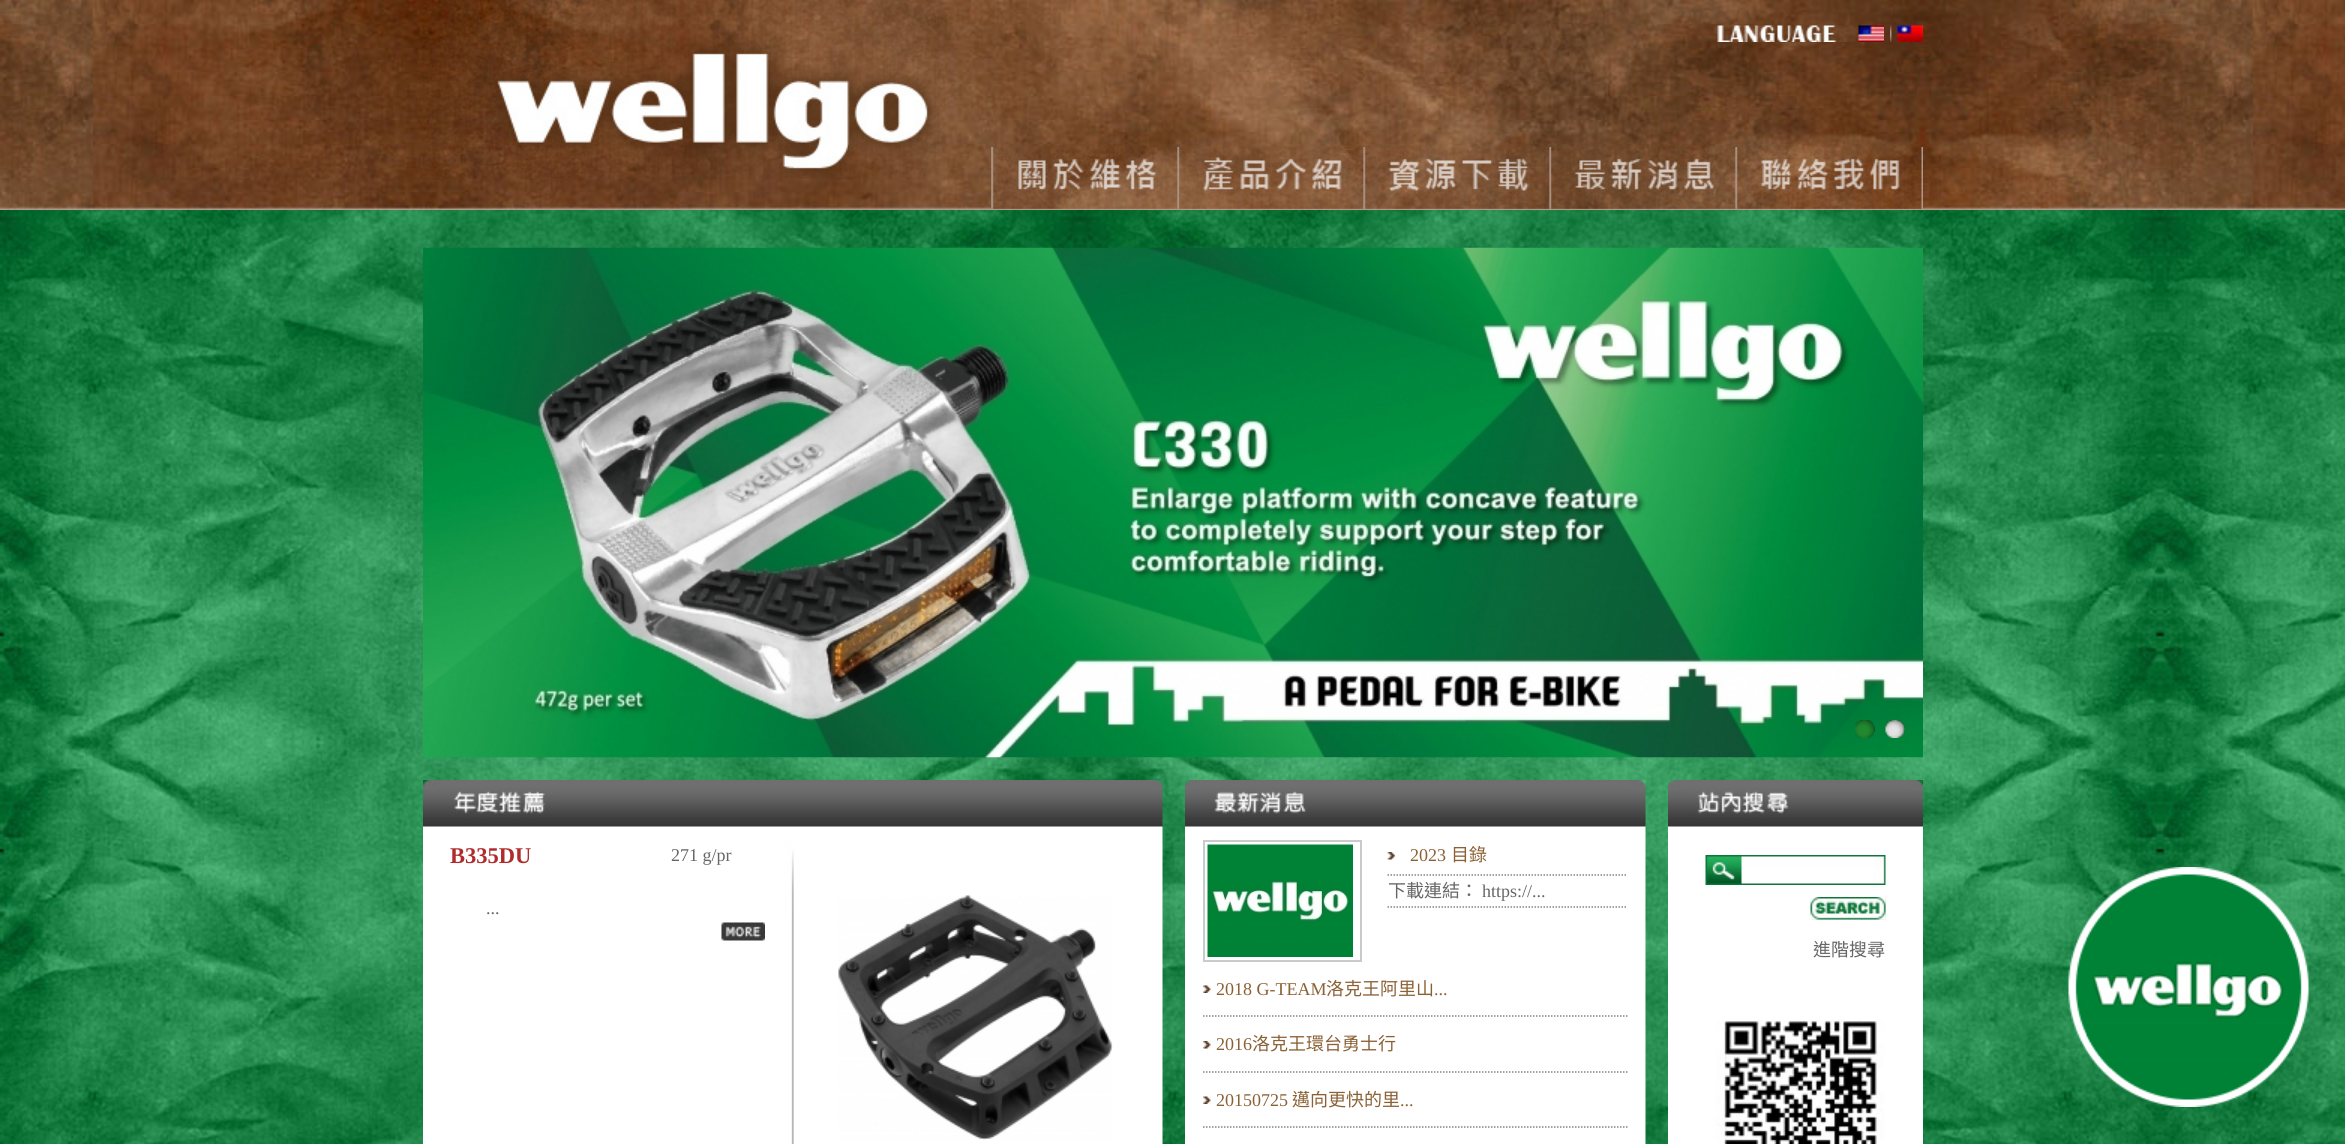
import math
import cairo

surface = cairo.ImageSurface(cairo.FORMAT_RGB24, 2345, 1144)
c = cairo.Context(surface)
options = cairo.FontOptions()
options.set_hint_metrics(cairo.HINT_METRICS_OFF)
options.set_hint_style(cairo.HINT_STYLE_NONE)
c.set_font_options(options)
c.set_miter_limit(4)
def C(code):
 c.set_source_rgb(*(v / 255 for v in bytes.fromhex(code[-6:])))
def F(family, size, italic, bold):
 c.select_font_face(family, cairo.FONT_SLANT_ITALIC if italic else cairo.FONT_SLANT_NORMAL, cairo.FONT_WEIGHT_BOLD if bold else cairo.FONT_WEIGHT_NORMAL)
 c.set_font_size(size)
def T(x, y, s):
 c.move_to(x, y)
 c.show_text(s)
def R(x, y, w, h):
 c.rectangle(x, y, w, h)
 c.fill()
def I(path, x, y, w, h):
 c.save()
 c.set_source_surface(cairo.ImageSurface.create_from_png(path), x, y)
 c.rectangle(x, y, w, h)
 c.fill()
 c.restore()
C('ffffff')
c.paint()
I('1.png',0,0,2345,210)
I('2.png',423,0,520,179)
I('3.png',1714,25,145,17)
I('4.png',1858,25,26,17)
I('5.png',1890,25,2,17)
I('6.png',1897,25,26,17)
I('7.png',991,147,932,62)
I('8.png',991,147,187,62)
I('9.png',1177,147,187,62)
I('10.png',1363,147,187,62)
I('11.png',1549,147,187,62)
I('12.png',1735,147,188,62)
I('13.png',0,210,2345,934)
I('14.png',423,247,1500,511)
I('15.png',1855,720,20,18)
I('16.png',1855,720,20,18)
I('17.png',1885,720,20,18)
I('18.png',1885,720,20,18)
I('19.png',423,780,740,364)
F('Liberation Serif',22.5,0,1)
C('b02c2c')
T(450,863,'B335DU')
F('Liberation Serif',18,0,0)
C('666666')
T(671,861,'271 g/pr')
T(486,914,'...')
I('20.png',721,922,44,19)
I('21.png',838,895,275,245)
I('22.png',1185,780,461,364)
c.rectangle(1204,841,157,120)
C('cacaca')
c.stroke()
I('23.png',1207,844,146,113)
I('24.png',1387,852,8,8)
c.new_path()
c.move_to(1387.5,875)
c.line_to(1627.5,875)
C('848484')
c.set_line_width(1.5)
c.set_dash([1.5,1.5])
c.stroke()
C('8a6135')
T(1410,861,'2023')
F('Noto Sans CJK TC',18,0,0)
T(1451,861,'目錄')
c.new_path()
c.move_to(1387.5,907)
c.line_to(1627.5,907)
C('848484')
c.stroke()
C('666666')
T(1388,897,'下載連結：')
F('Liberation Serif',18,0,0)
T(1482,897,'https://...')
I('25.png',1203,985,8,8)
c.new_path()
c.move_to(1203,1016)
c.line_to(1627.5,1016)
C('848484')
c.stroke()
C('8a6135')
T(1216,995,'2018 G-TEAM')
F('Noto Sans CJK TC',18,0,0)
T(1326,995,'洛克王阿里山')
F('Liberation Serif',18,0,0)
T(1434,995,'...')
I('26.png',1203,1041,8,8)
c.new_path()
c.move_to(1203,1072)
c.line_to(1627.5,1072)
C('848484')
c.stroke()
C('8a6135')
T(1216,1050,'2016')
F('Noto Sans CJK TC',18,0,0)
T(1252,1050,'洛克王環台勇士行')
I('25.png',1203,1096,8,8)
c.new_path()
c.move_to(1203,1127)
c.line_to(1627.5,1127)
C('848484')
c.stroke()
F('Liberation Serif',18,0,0)
C('8a6135')
T(1216,1106,'20150725')
F('Noto Sans CJK TC',18,0,0)
T(1292,1106,'邁向更快的里')
F('Liberation Serif',18,0,0)
T(1400,1106,'...')
I('27.png',1668,780,255,364)
I('28.png',1705,855,181,30)
C('efefef')
R(1811,897,75,23)
I('29.png',1810,897,76,23)
F('Noto Sans CJK TC',18,0,0)
C('666666')
T(1813,956,'進階搜尋')
I('30.png',2068,867,241,240)
surface.write_to_png('o.png')
